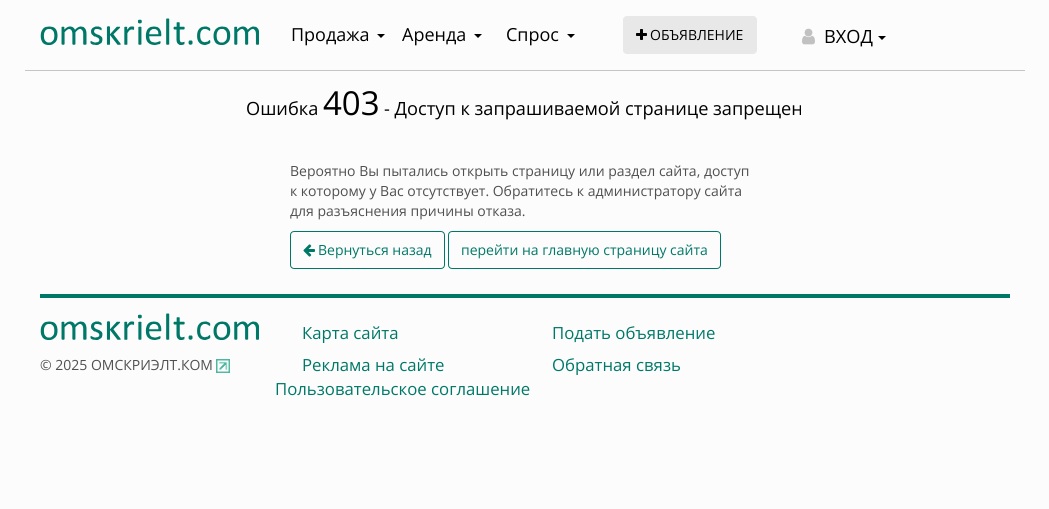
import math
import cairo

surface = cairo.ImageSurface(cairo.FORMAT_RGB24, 1049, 509)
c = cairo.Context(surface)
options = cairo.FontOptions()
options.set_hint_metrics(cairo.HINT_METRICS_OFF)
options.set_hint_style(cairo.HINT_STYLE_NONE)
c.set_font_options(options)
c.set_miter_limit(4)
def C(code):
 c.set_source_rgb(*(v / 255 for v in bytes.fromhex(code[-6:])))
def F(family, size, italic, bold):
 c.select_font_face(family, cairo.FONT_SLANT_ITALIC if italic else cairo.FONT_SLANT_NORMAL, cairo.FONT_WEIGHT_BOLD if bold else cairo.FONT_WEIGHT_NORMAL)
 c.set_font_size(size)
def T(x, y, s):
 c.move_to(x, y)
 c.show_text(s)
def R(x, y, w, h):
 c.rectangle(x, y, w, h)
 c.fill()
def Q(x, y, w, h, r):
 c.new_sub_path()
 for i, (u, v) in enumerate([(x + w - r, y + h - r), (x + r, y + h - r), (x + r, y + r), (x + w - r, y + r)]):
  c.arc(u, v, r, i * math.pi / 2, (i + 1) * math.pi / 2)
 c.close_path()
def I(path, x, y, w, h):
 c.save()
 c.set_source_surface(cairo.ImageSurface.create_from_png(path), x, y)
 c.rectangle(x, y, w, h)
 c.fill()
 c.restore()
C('fcfcfc')
c.paint()
C('c5c5c5')
R(25,70,1000,1)
I('1.png',40,18,219,27)
F('Open Sans',18,0,0)
C('000000')
T(291,41,'Продажа')
c.new_path()
c.move_to(377,34)
c.line_to(385,34)
c.line_to(381,38)
c.close_path()
c.fill()
T(402,41,'Аренда')
c.new_path()
c.move_to(474,34)
c.line_to(482,34)
c.line_to(478,38)
c.close_path()
c.fill()
T(506,41,'Спрос')
c.new_path()
c.move_to(567,34)
c.line_to(575,34)
c.line_to(571,38)
c.close_path()
c.fill()
C('e8e8e8')
Q(623,16,134,38,4)
c.fill()
I('2.png',636,29,11,11)
F('Open Sans',14,0,0)
C('000000')
T(650,40,'ОБЪЯВЛЕНИЕ')
I('3.png',802,28,13,17)
F('Open Sans',18.2,0,0)
T(824,43,'ВХОД')
c.new_path()
c.move_to(878,36)
c.line_to(886,36)
c.line_to(882,40)
c.close_path()
c.fill()
T(246,115,'Ошибка')
F('Open Sans',33,0,0)
T(323,115,'403')
F('Open Sans',18.2,0,0)
T(384,115,'- Доступ к запрашиваемой странице запрещен')
F('Open Sans',14,0,0)
C('505050')
T(290,176,'Вероятно Вы пытались открыть страницу или раздел сайта, доступ')
T(290,196,'к которому у Вас отсутствует. Обратитесь к администратору сайта')
T(290,216,'для разъяснения причины отказа.')
Q(290.5,231.5,154,37,3.5)
C('007868')
c.set_line_width(1)
c.stroke()
I('4.png',303,244,12,13)
T(318,255,'Вернуться назад')
Q(448.5,231.5,272,37,3.5)
c.stroke()
T(461,255,'перейти на главную страницу сайта')
R(40,294,970,4)
I('1.png',40,313,219,27)
C('505050')
T(40,370,'© 2025 ОМСКРИЭЛТ.КОМ')
I('5.png',216,359,14,14)
F('Open Sans',16.75,0,0)
C('007868')
T(302,339,'Карта сайта')
T(302,371,'Реклама на сайте')
T(552,339,'Подать объявление')
T(552,371,'Обратная связь')
T(275,395,'Пользовательское соглашение')
surface.write_to_png('o.png')
